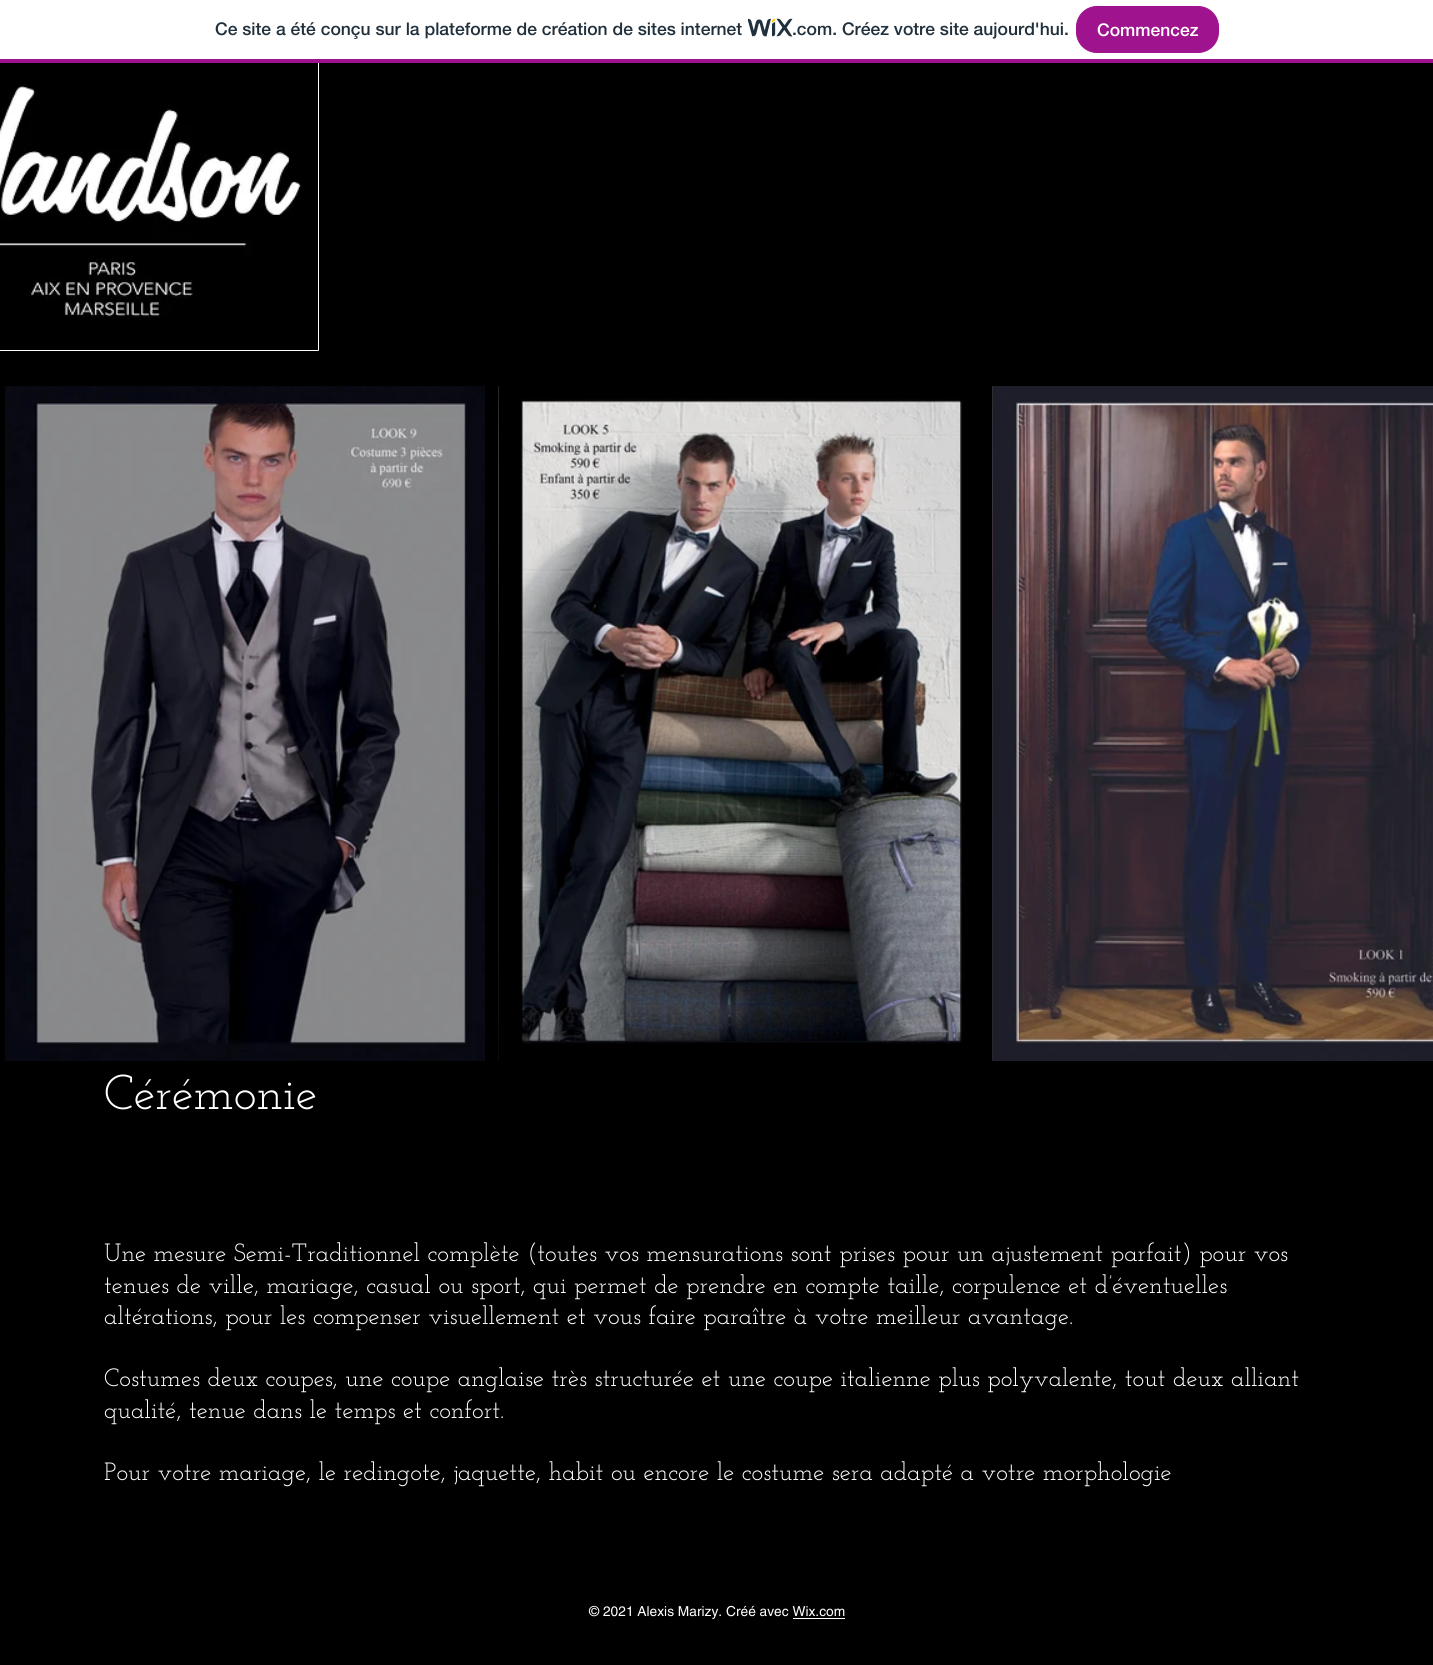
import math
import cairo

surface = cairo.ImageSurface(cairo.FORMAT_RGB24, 1433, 1665)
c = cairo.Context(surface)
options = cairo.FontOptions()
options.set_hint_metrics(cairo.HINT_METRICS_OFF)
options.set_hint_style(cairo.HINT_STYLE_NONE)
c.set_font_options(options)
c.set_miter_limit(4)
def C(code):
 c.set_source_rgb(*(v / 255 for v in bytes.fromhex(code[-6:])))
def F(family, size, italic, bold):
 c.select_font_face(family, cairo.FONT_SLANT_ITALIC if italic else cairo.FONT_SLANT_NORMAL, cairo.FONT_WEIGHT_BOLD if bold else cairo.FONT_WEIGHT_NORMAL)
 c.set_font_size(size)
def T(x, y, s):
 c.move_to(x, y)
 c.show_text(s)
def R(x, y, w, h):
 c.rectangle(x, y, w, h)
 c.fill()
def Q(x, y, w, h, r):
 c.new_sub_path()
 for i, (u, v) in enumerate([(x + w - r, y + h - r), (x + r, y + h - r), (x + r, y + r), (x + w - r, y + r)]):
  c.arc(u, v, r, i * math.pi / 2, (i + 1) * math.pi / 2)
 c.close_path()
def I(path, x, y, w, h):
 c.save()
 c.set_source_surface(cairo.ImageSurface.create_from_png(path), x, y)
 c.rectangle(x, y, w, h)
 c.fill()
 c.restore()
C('000000')
c.paint()
Q(-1.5,53.5,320,297,.5)
C('ffffff')
c.set_line_width(1)
c.stroke()
R(0,0,1433,59)
C('a0138e')
R(0,59,1433,4)
F('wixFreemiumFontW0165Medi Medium',17.5,0,0)
C('20303c')
T(215,35,'Ce site a été conçu sur la plateforme de création de sites internet')
I('1.png',748,18,45,19)
T(792,35,'.com. Créez votre site aujourd\'hui.')
C('a0138e')
Q(1076.5,6.5,142,46,20.5)
c.fill_preserve()
c.stroke()
C('ffffff')
T(1097,36,'Commencez')
I('2.png',0,85,301,234)
I('3.png',5,386,480,675)
I('4.png',498,386,1,675)
I('5.png',499,386,480,675)
I('6.png',992,386,1,675)
I('7.png',993,386,440,675)
F('Josefin Slab',48.75,0,0)
T(104,1109,'Cérémonie')
F('Josefin Slab',25,0,0)
T(104,1261,'Une mesure Semi-Traditionnel complète (toutes vos mensurations sont prises pour un ajustement parfait) pour vos')
T(104,1293,'tenues de ville, mariage, casual ou sport, qui permet de prendre en compte taille, corpulence et d’éventuelles')
T(104,1324,'altérations, pour les compenser visuellement et vous faire paraître à votre meilleur avantage.')
T(104,1386,'Costumes deux coupes, une coupe anglaise très structurée et une coupe italienne plus polyvalente, tout deux alliant')
T(104,1418,'qualité, tenue dans le temps et confort.')
T(104,1480,'Pour votre mariage, le redingote, jaquette, habit ou encore le costume sera adapté a votre morphologie')
F('helvetica',13.75,0,0)
T(589,1616,'© 2021 Alexis Marizy. Créé avec Wix.com')
R(793,1618,52,1)
surface.write_to_png('o.png')
